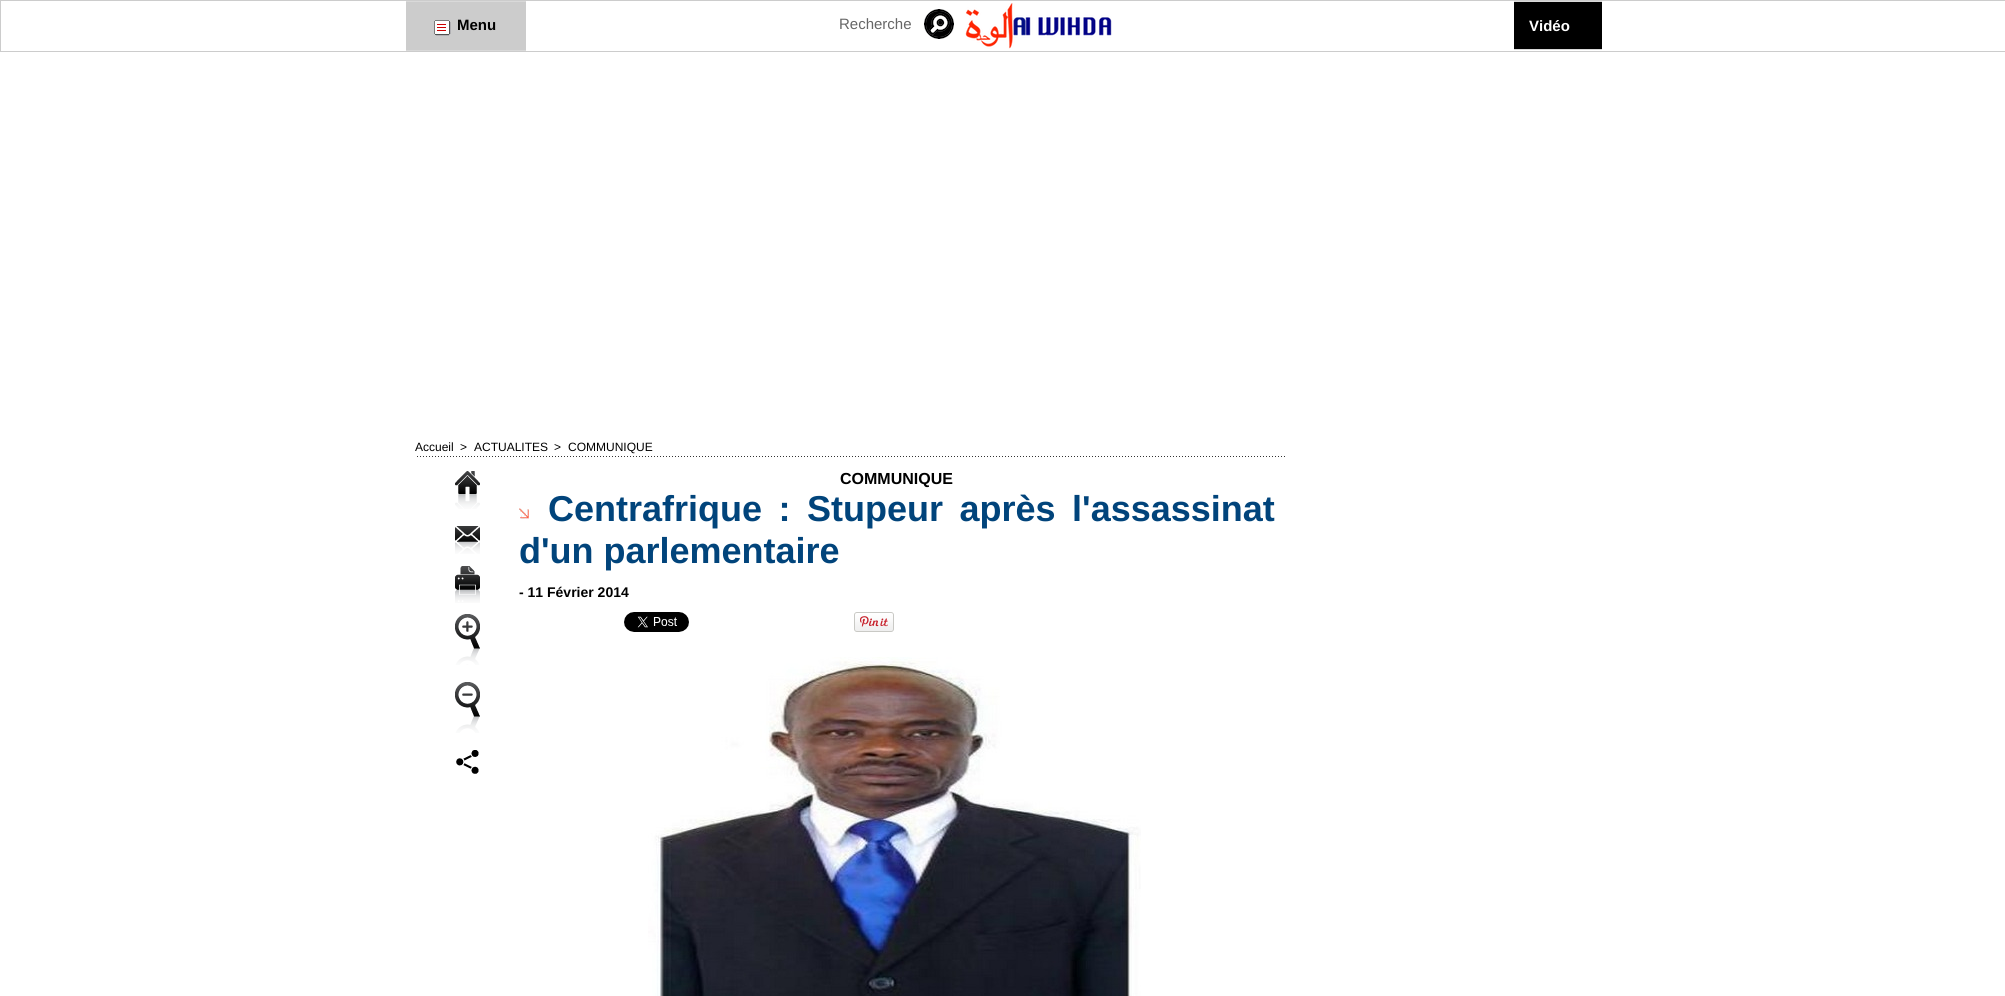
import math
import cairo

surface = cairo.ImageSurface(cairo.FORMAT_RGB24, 2005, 996)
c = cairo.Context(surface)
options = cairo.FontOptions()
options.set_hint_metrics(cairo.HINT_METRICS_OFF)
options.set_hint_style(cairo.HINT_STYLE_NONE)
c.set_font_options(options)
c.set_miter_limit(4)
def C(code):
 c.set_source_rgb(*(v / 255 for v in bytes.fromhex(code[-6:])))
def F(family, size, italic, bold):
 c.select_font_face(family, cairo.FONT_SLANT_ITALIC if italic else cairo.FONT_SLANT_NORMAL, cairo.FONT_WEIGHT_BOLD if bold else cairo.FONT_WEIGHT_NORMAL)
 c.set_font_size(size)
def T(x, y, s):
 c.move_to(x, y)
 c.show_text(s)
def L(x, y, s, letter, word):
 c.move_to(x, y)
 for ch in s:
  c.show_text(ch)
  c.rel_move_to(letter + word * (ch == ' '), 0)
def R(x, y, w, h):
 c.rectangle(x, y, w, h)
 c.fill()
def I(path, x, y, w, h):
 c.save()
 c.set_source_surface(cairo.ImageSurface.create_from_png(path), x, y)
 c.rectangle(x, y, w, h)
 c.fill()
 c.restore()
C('ffffff')
c.paint()
c.rectangle(.5,.5,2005,51)
C('cccccc')
c.set_line_width(1)
c.stroke()
C('d9d9d9')
R(406,1,120,1)
R(406,50,120,1)
C('cccccc')
R(406,2,120,48)
I('1.png',434,20,17,16)
F('Liberation Sans',15,0,1)
C('000000')
T(457,30,'Menu')
I('2.png',924,9,30,30)
F('Liberation Sans',15,0,0)
C('666666')
T(839,29,'Recherche')
I('3.png',965,3,147,46)
C('d9d9d9')
R(1514,1,88,1)
R(1514,49,88,1)
C('000000')
R(1514,2,88,47)
F('Liberation Sans',15,0,1)
C('ffffff')
T(1529,31,'Vidéo')
F('Liberation Sans',12,0,0)
C('000000')
T(415,451,'Accueil')
T(460,451,'>')
T(474,451,'ACTUALITES')
T(554,451,'>')
T(568,451,'COMMUNIQUE')
I('4.png',417,456,868,1)
I('5.png',455,471,25,38)
I('6.png',455,526,25,28)
I('7.png',455,566,25,37)
I('8.png',455,614,25,51)
I('9.png',455,682,25,51)
I('10.png',456,750,23,24)
F('Liberation Sans',16,0,1)
T(840,484,'COMMUNIQUE')
I('11.png',519,508,10,11)
F('Liberation Sans',36,0,1)
C('01447b')
L(548,521,'Centrafrique : Stupeur après l\'assassinat',0,6.5)
T(519,563,'d\'un parlementaire')
F('Liberation Sans',14,0,1)
C('000000')
T(519,597,'- 11 Février 2014')
I('12.png',624,612,65,20)
I('13.png',854,612,40,20)
I('14.png',648,657,493,339)
surface.write_to_png('o.png')
